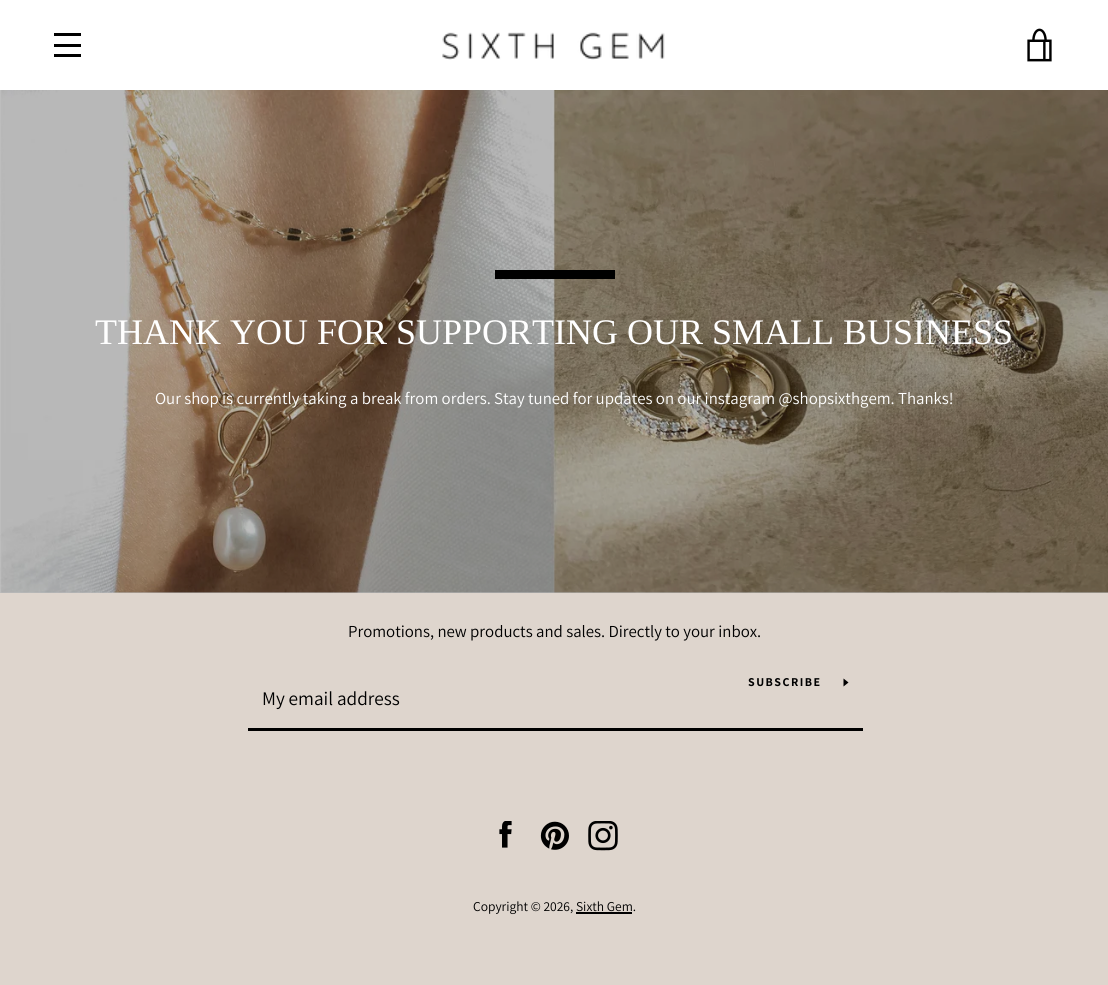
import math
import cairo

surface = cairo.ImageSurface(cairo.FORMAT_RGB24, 1108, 985)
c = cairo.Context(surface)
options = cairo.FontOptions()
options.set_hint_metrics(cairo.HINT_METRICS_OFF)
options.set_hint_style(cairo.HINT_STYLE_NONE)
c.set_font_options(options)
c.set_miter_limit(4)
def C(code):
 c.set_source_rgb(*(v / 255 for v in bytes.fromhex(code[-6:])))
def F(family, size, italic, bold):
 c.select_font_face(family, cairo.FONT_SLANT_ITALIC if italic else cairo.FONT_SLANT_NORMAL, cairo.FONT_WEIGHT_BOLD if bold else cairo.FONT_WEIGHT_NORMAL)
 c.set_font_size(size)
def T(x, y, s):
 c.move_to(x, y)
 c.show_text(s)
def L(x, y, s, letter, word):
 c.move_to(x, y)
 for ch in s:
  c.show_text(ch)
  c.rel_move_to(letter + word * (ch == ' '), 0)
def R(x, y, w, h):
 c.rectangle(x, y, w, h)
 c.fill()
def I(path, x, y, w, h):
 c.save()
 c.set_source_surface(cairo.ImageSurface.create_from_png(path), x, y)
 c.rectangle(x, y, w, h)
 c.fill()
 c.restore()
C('ffffff')
c.paint()
C('000000')
R(54,33,27,3)
R(54,44,27,3)
R(54,54,27,3)
I('1.png',442,32,223,28)
I('2.png',1027,28,25,34)
C('bdbdbd')
R(0,592,1108,1)
I('3.png',0,90,1108,503)
C('000000')
R(495,270,120,9)
F('Liberation Serif',36,0,0)
C('ffffff')
T(95,344,'THANK YOU FOR SUPPORTING OUR SMALL BUSINESS')
F('Assistant',16.8,0,0)
T(155,404,'Our shop is currently taking a break from orders. Stay tuned for updates on our instagram @shopsixthgem. Thanks!')
C('ded5cd')
R(0,593,1108,392)
C('000000')
T(348,637,'Promotions, new products and sales. Directly to your inbox.')
R(248,728,615,3)
F('Assistant',12,0,1)
L(748,686,'SUBSCRIBE',1.5,0)
c.new_path()
c.move_to(848.5,682.5)
c.line_to(843.5,686.5)
c.line_to(843.5,678.5)
c.close_path()
c.fill()
F('Assistant',19.25,0,0)
T(262,705,'My email address')
I('4.png',499,821,13,27)
I('5.png',540,821,29,29)
I('6.png',588,821,30,30)
F('Assistant',13.5,0,0)
T(473,911,'Copyright © 2026, Sixth Gem.')
R(576,912,56,2)
surface.write_to_png('o.png')
